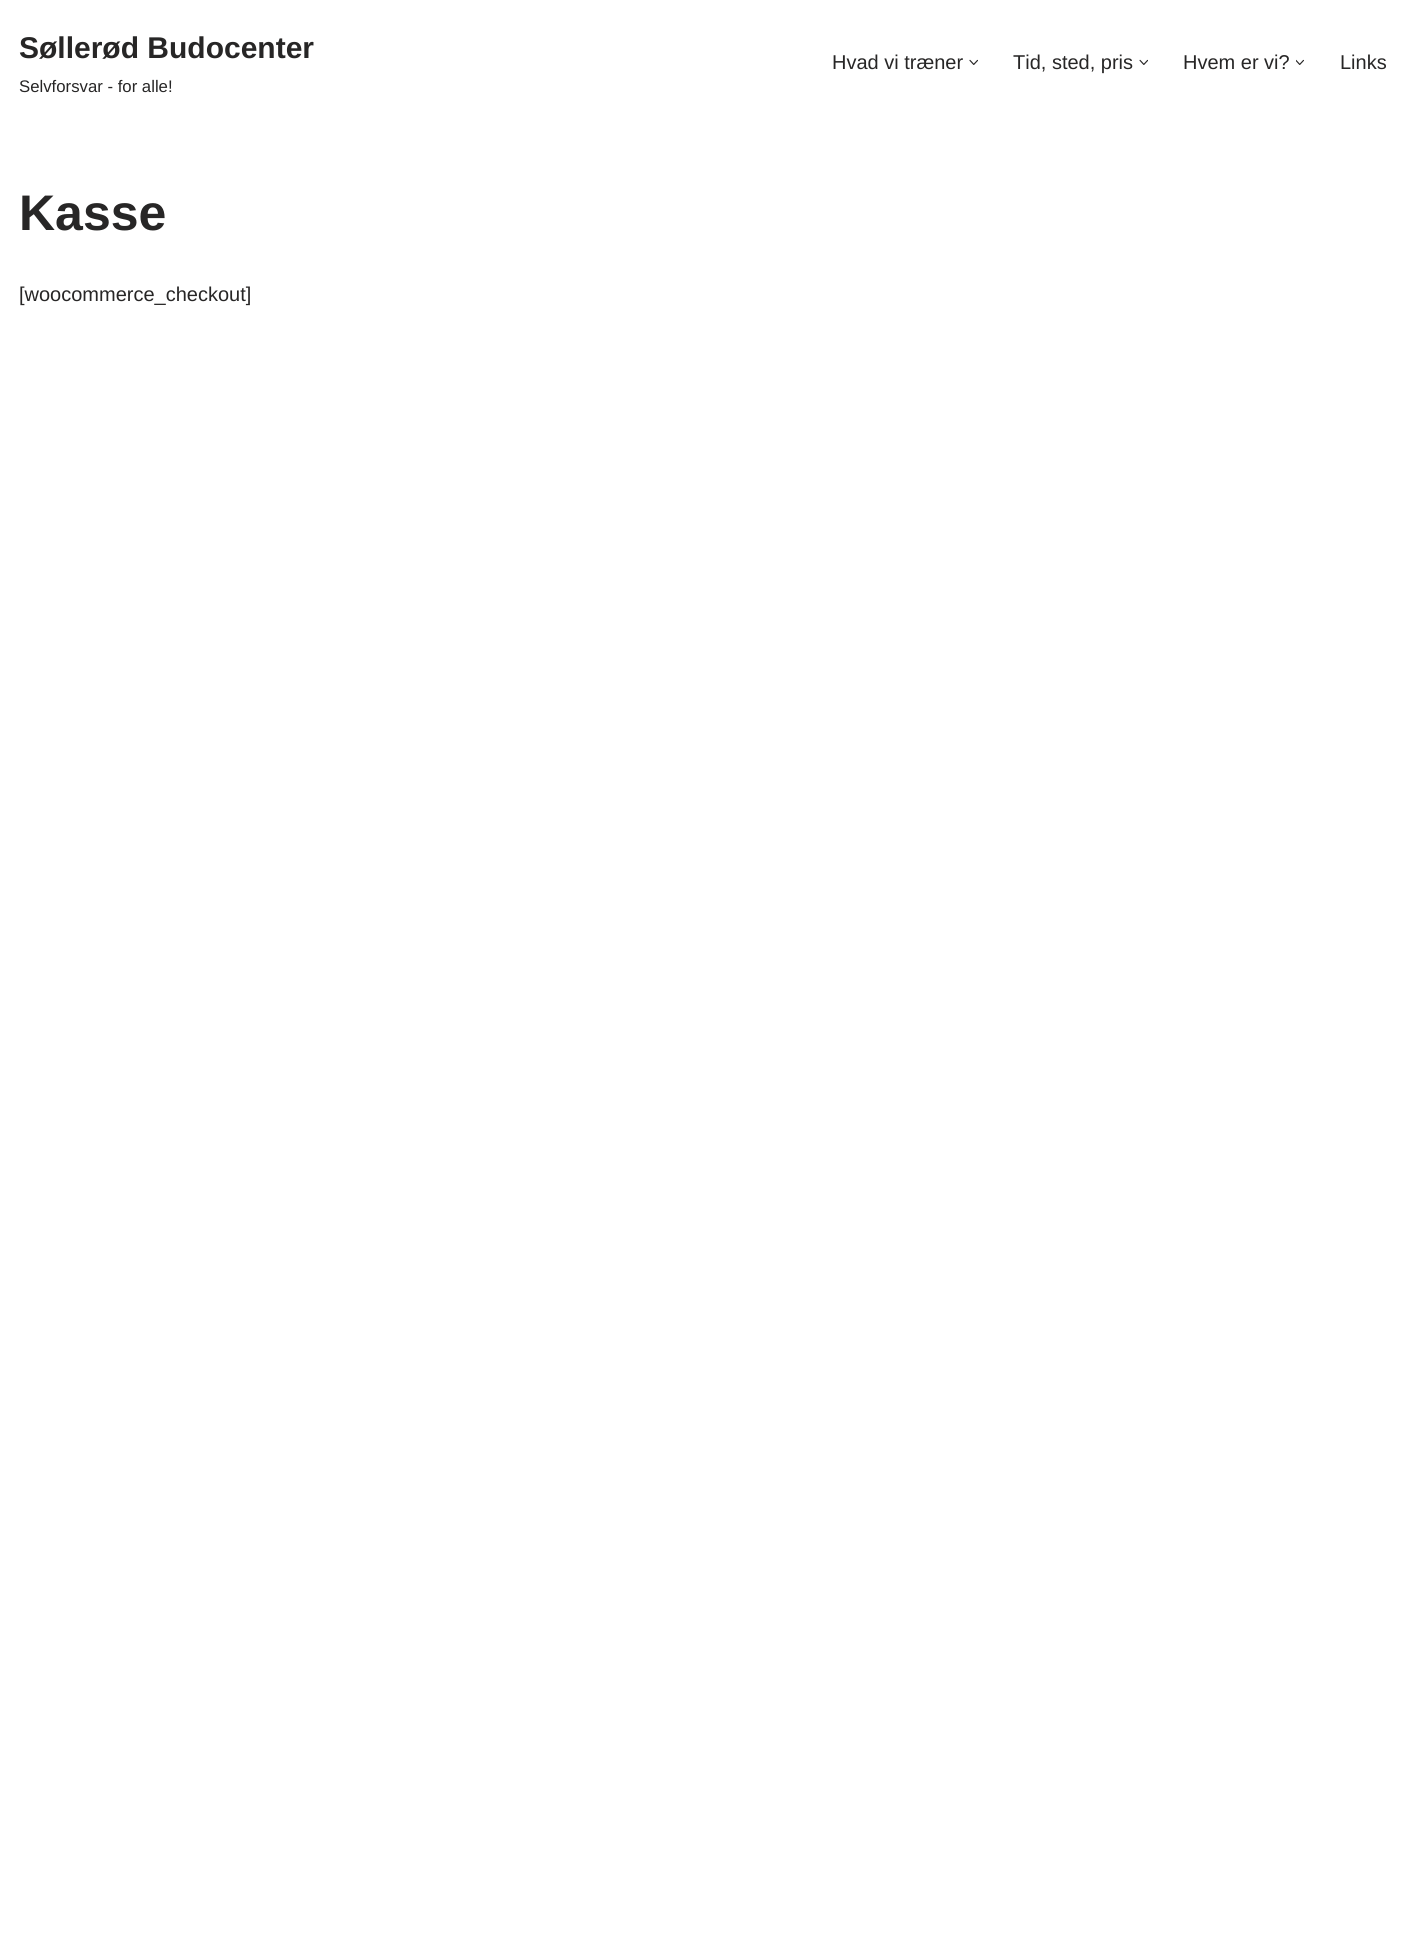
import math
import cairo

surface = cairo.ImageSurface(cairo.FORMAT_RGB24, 1410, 1953)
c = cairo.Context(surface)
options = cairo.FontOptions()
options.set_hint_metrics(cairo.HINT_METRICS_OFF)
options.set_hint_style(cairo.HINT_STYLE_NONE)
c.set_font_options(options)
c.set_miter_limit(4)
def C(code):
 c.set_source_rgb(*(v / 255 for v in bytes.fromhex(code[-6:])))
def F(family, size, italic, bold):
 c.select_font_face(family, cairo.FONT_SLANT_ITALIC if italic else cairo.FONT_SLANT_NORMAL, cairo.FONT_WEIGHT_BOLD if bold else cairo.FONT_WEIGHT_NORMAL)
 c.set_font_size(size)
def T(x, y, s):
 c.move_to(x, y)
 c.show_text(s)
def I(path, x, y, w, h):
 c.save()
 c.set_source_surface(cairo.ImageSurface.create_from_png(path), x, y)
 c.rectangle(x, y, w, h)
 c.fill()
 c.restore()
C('ffffff')
c.paint()
F('Liberation Sans',30,0,1)
C('272626')
T(19,58,'Søllerød Budocenter')
F('Liberation Sans',16.75,0,0)
T(19,92,'Selvforsvar - for alle!')
F('Liberation Sans',20,0,0)
T(832,69,'Hvad vi træner')
I('1.png',969,59,9,6)
T(1013,69,'Tid, sted, pris')
I('2.png',1139,59,9,6)
T(1183,69,'Hvem er vi?')
I('3.png',1296,59,8,6)
T(1340,69,'Links')
F('Liberation Sans',50,0,1)
T(19,230,'Kasse')
F('Liberation Sans',20,0,0)
T(19,301,'[woocommerce_checkout]')
surface.write_to_png('o.png')
